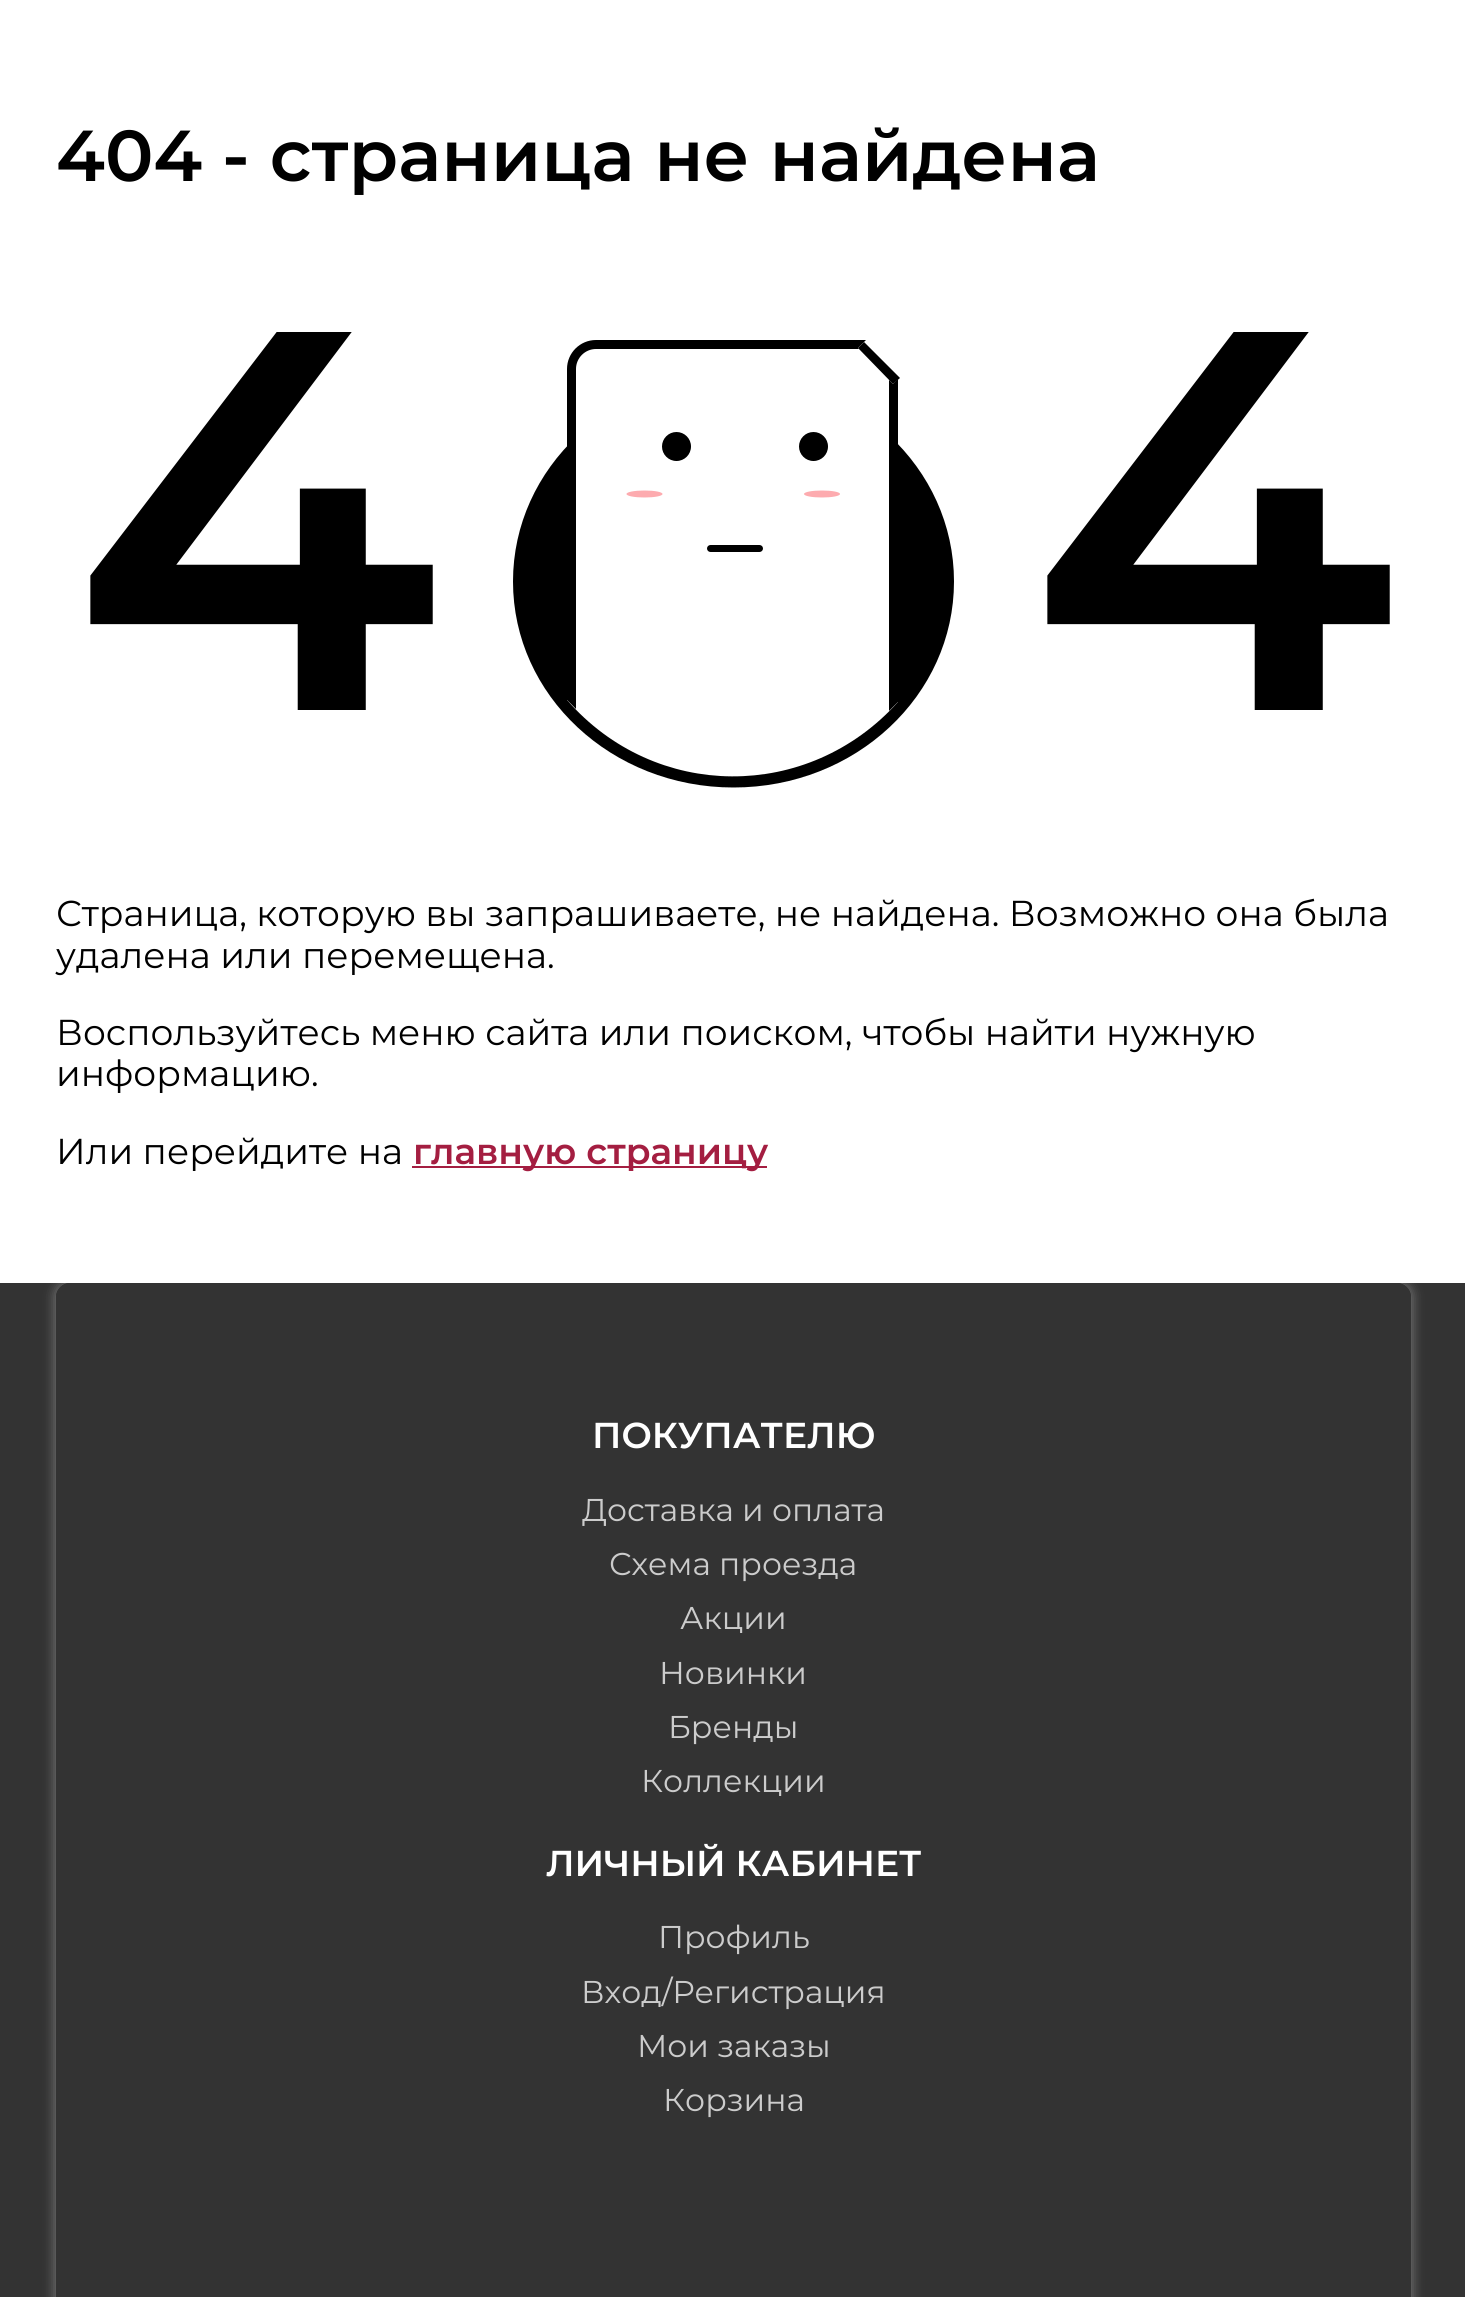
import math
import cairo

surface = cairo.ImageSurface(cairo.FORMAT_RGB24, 1465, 2297)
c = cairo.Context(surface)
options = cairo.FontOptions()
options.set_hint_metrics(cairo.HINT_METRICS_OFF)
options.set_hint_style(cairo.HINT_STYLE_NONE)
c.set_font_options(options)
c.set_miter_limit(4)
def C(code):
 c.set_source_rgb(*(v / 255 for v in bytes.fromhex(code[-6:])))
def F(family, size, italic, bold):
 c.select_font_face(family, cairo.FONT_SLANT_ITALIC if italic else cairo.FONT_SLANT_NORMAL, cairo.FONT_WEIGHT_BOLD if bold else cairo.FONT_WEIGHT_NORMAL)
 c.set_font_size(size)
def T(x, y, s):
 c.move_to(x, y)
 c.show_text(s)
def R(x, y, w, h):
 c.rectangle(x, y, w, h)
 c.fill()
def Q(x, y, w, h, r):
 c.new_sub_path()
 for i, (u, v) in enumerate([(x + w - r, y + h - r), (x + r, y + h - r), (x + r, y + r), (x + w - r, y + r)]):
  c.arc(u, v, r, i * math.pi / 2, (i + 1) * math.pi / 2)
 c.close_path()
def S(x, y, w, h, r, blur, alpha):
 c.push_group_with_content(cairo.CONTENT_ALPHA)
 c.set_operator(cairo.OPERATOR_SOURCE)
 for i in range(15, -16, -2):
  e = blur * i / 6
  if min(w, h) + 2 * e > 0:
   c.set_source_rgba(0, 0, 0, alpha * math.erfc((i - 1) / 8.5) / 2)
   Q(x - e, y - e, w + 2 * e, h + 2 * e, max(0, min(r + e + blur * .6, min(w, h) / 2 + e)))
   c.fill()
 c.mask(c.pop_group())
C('ffffff')
c.paint()
F('Montserrat SemiBold',72,0,0)
C('000000')
T(56,181,'404 - страница не найдена')
F('Montserrat SemiBold',540,0,0)
T(72,710,'4')
c.new_path()
c.move_to(733.5,375.5)
c.curve_to(855.5,375.5,954,467.5,954,581.5)
c.curve_to(954,695.5,855.5,787.5,733.5,787.5)
c.curve_to(611.5,787.5,513,695.5,513,581.5)
c.curve_to(513,467.5,611.5,375.5,733.5,375.5)
c.close_path()
c.fill()
C('ffffff')
c.new_path()
c.move_to(596,340)
c.line_to(869,340)
c.curve_to(885,340,898,353,898,369)
c.line_to(898,702)
c.curve_to(808,802,655,801,567,700)
c.line_to(567,369)
c.curve_to(567,353,580,340,596,340)
c.close_path()
c.fill()
C('000000')
c.new_path()
c.move_to(596,340)
c.curve_to(580,340,567,353,567,369)
c.line_to(567,700)
c.line_to(576,709)
c.line_to(576,369)
c.curve_to(576,358,585,349,596,349)
c.line_to(869,349)
c.curve_to(880,349,889,358,889,369)
c.line_to(889,711)
c.line_to(898,702)
c.line_to(898,369)
c.curve_to(898,353,885,340,869,340)
c.close_path()
c.fill()
C('ffffff')
c.new_path()
c.move_to(883,323)
c.line_to(919,358)
c.line_to(893,384)
c.line_to(858,348)
c.close_path()
c.fill()
C('000000')
c.new_path()
c.move_to(864,342)
c.line_to(900,378)
c.line_to(893,384)
c.line_to(858,348)
c.close_path()
c.fill()
c.arc(676.5,446.5,14.5,0,2 * math.pi)
c.fill()
c.arc(813.5,446.5,14.5,0,2 * math.pi)
c.fill()
C('fdabaf')
c.new_path()
c.move_to(644.5,490.5)
c.curve_to(654.5,490.5,662.5,492,662.5,494)
c.curve_to(662.5,496,654.5,497.5,644.5,497.5)
c.curve_to(634.5,497.5,626.5,496,626.5,494)
c.curve_to(626.5,492,634.5,490.5,644.5,490.5)
c.close_path()
c.fill()
c.new_path()
c.move_to(822,490.5)
c.curve_to(832,490.5,840,492,840,494)
c.curve_to(840,496,832,497.5,822,497.5)
c.curve_to(812,497.5,804,496,804,494)
c.curve_to(804,492,812,490.5,822,490.5)
c.close_path()
c.fill()
C('000000')
Q(707,545,56,7,3.5)
c.fill()
T(1029,710,'4')
F('Montserrat',36,0,0)
T(56,926,'Страница, которую вы запрашиваете, не найдена. Возможно она была')
T(56,968,'удалена или перемещена.')
T(56,1045,'Воспользуйтесь меню сайта или поиском, чтобы найти нужную')
T(56,1086,'информацию.')
T(56,1164,'Или перейдите на')
C('a41e41')
R(412,1166,355,2)
F('Montserrat SemiBold',36,0,0)
T(413,1164,'главную страницу')
C('333333')
R(0,1283,1465,1014)
c.save()
c.set_fill_rule(cairo.FILL_RULE_EVEN_ODD)
c.new_path()
c.move_to(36,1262)
c.line_to(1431,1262)
c.line_to(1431,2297)
c.line_to(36,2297)
c.close_path()
c.move_to(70,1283)
c.line_to(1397,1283)
c.curve_to(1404.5,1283,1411,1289.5,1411,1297)
c.line_to(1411,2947)
c.curve_to(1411,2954.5,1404.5,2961,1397,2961)
c.line_to(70,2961)
c.curve_to(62.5,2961,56,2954.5,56,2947)
c.line_to(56,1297)
c.curve_to(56,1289.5,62.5,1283,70,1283)
c.close_path()
c.clip()
C('ffffff')
S(54,1280,1359,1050,16,5.5,.3)
c.restore()
gradient = cairo.LinearGradient(719,1271,748,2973)
gradient.add_color_stop_rgba(.14,0.2,0.2,0.2,1)
gradient.add_color_stop_rgba(.99,0.2,0.2,0.2,.75)
c.set_source(gradient)
Q(56,1283,1355,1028,14)
c.fill()
C('ffffff')
T(592,1448,'ПОКУПАТЕЛЮ')
F('Montserrat',31.5,0,0)
C('cccccc')
T(582,1521,'Доставка и оплата')
T(609,1575,'Схема проезда')
T(680,1629,'Акции')
T(659,1684,'Новинки')
T(668,1738,'Бренды')
T(641,1792,'Коллекции')
F('Montserrat SemiBold',36,0,0)
C('ffffff')
T(546,1876,'ЛИЧНЫЙ КАБИНЕТ')
F('Montserrat',31.5,0,0)
C('cccccc')
T(658,1948,'Профиль')
T(581,2003,'Вход/Регистрация')
T(637,2057,'Мои заказы')
T(663,2111,'Корзина')
surface.write_to_png('o.png')
